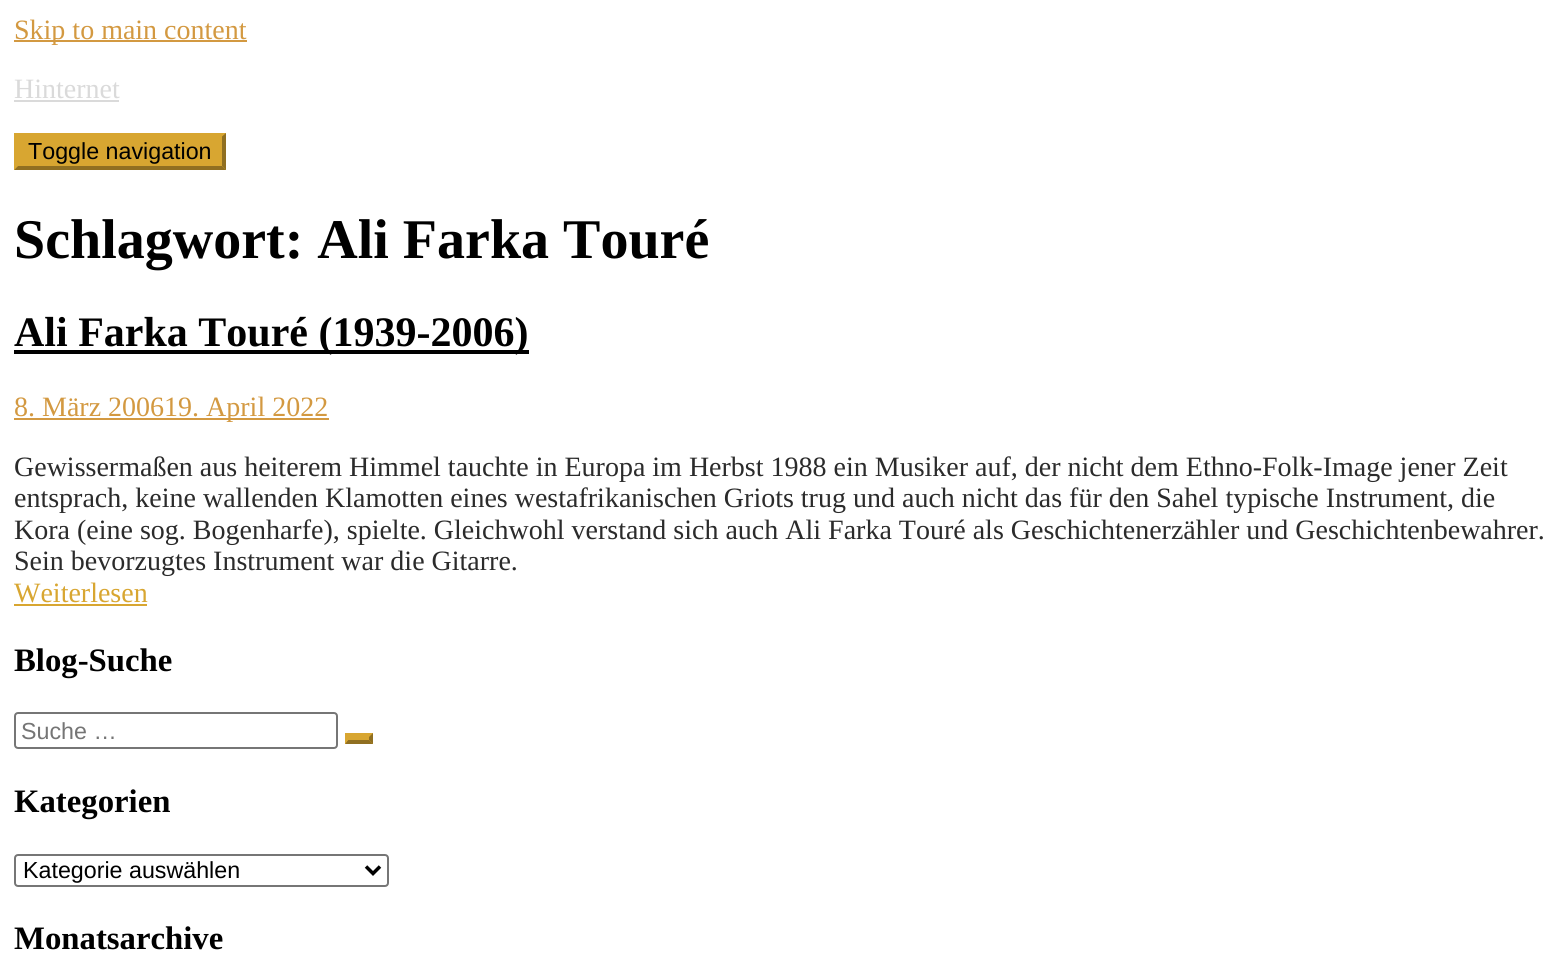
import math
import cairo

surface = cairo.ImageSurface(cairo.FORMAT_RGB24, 1565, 979)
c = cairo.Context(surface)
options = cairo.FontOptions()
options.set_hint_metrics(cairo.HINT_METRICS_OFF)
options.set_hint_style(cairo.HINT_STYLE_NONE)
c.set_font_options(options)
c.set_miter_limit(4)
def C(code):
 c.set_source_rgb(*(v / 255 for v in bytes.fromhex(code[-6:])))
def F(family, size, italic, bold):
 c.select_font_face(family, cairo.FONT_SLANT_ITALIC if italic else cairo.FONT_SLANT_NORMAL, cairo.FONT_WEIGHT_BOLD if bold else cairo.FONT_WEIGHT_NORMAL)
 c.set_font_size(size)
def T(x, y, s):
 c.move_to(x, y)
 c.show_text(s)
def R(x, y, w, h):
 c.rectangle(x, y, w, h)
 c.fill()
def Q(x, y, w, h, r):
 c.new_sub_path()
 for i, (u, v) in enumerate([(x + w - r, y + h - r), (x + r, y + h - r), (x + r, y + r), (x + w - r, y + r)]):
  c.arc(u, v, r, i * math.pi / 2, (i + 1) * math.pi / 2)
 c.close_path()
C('ffffff')
c.paint()
C('d39941')
R(14,40,233,2)
F('Liberation Serif',28,0,0)
T(14,39,'Skip to main content')
C('dadada')
T(14,98,'Hinternet')
R(14,100,105,2)
C('d8a631')
R(14,133,212,37)
C('906f21')
c.new_path()
c.move_to(226,133)
c.line_to(226,170)
c.line_to(222,166)
c.line_to(222,136.5)
c.close_path()
c.fill()
c.new_path()
c.move_to(226,170)
c.line_to(14,170)
c.line_to(18,166)
c.line_to(222,166)
c.close_path()
c.fill()
C('d8a631')
c.new_path()
c.move_to(14,170)
c.line_to(14,133)
c.line_to(17.5,136.5)
c.line_to(17.5,166)
c.close_path()
c.fill()
F('Liberation Sans',23.25,0,0)
C('000000')
T(28,159,'Toggle navigation')
F('Liberation Serif',56,0,1)
T(14,258,'Schlagwort: Ali Farka Touré')
R(14,350,515,4)
F('Liberation Serif',42,0,1)
T(14,346,'Ali Farka Touré (1939-2006)')
C('d39941')
R(14,418,315,2)
F('Liberation Serif',28,0,0)
T(14,416,'8. März 200619. April 2022')
C('2b2b2b')
T(14,476,'Gewissermaßen aus heiterem Himmel tauchte in Europa im Herbst 1988 ein Musiker auf, der nicht dem Ethno-Folk-Image jener Zeit')
T(14,507,'entsprach, keine wallenden Klamotten eines westafrikanischen Griots trug und auch nicht das für den Sahel typische Instrument, die')
T(14,539,'Kora (eine sog. Bogenharfe), spielte. Gleichwohl verstand sich auch Ali Farka Touré als Geschichtenerzähler und Geschichtenbewahrer.')
T(14,570,'Sein bevorzugtes Instrument war die Gitarre.')
C('d8a631')
T(14,602,'Weiterlesen')
R(14,604,133,2)
F('Liberation Serif',32.75,0,1)
C('000000')
T(14,671,'Blog-Suche')
Q(15,713,322,35,3)
C('767676')
c.stroke()
F('Liberation Sans',23.25,0,0)
C('757575')
T(21,739,'Suche …')
C('d8a631')
R(345,733,28,11)
C('906f21')
c.new_path()
c.move_to(373,733)
c.line_to(373,744)
c.line_to(369,740)
c.line_to(369,737)
c.close_path()
c.fill()
c.new_path()
c.move_to(373,744)
c.line_to(345,744)
c.line_to(348,740)
c.line_to(369,740)
c.close_path()
c.fill()
C('d8a631')
c.new_path()
c.move_to(345,744)
c.line_to(345,733)
c.line_to(348,737)
c.line_to(348,740)
c.close_path()
c.fill()
F('Liberation Serif',32.75,0,1)
C('000000')
T(14,812,'Kategorien')
Q(15,855,373,31,3)
C('767676')
c.stroke()
c.new_path()
c.move_to(366,866.5)
c.line_to(373,873.5)
c.line_to(380,866.5)
C('000000')
c.set_line_width(3.5)
c.stroke()
F('Liberation Sans',23.25,0,0)
T(23,878,'Kategorie auswählen')
F('Liberation Serif',32.75,0,1)
T(14,949,'Monatsarchive')
surface.write_to_png('o.png')
